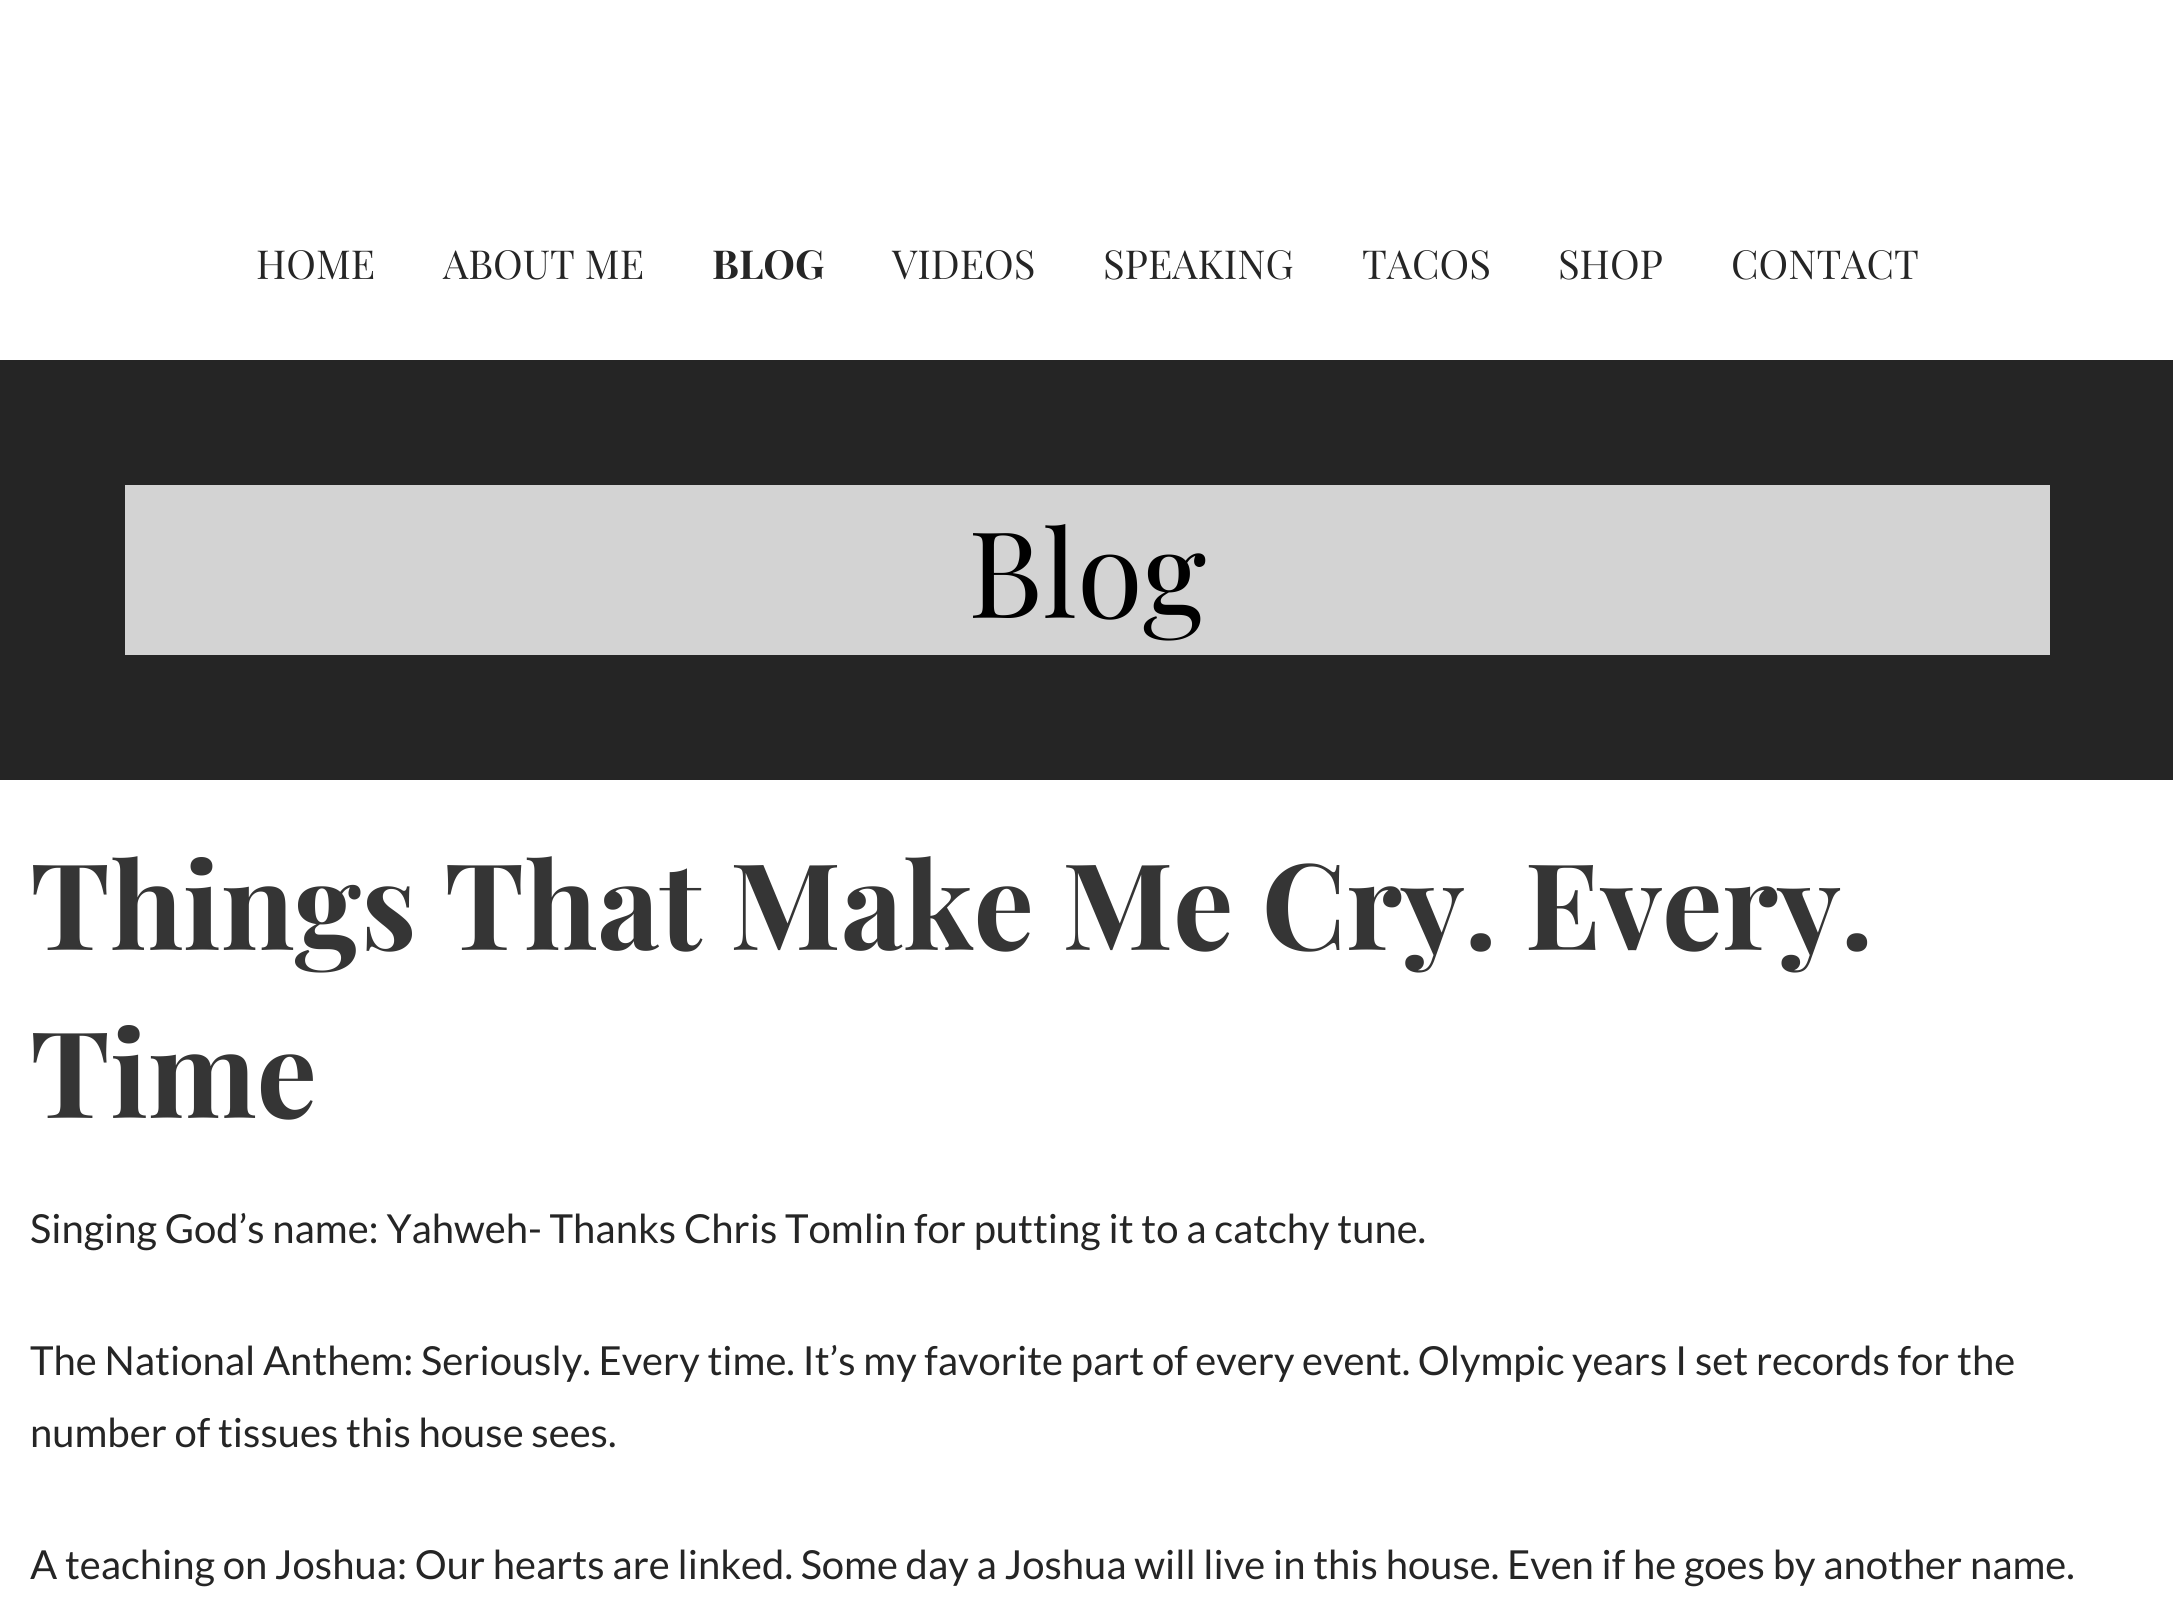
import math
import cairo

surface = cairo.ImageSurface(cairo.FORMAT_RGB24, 2173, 1621)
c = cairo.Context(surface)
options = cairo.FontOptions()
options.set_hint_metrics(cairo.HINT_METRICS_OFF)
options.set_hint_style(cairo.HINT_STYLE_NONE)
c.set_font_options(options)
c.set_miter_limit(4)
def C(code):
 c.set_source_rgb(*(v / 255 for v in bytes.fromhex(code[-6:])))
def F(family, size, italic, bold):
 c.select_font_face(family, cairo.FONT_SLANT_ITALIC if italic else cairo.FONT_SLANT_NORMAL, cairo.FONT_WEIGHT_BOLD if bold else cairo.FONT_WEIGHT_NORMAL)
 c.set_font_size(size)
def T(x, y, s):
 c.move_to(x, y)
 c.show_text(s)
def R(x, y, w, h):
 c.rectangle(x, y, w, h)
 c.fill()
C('ffffff')
c.paint()
F('Playfair Display',40,0,0)
C('252525')
T(256,279,'HOME')
T(443,279,'ABOUT ME')
F('Playfair Display',40,0,1)
T(712,279,'BLOG')
F('Playfair Display',40,0,0)
T(892,279,'VIDEOS')
T(1103,279,'SPEAKING')
T(1362,279,'TACOS')
T(1558,279,'SHOP')
T(1731,279,'CONTACT')
R(0,360,2173,420)
C('d3d3d3')
R(125,485,1925,170)
F('Playfair Display',120,0,0)
C('000000')
T(968,618,'Blog')
F('Playfair Display',120,0,1)
C('353535')
T(30,950,'Things That Make Me Cry. Every.')
T(30,1118,'Time')
F('Lato',40,0,0)
C('252525')
T(30,1243,'Singing God’s name: Yahweh- Thanks Chris Tomlin for putting it to a catchy tune.')
T(30,1375,'The National Anthem: Seriously. Every time. It’s my favorite part of every event. Olympic years I set records for the')
T(30,1447,'number of tissues this house sees.')
T(30,1579,'A teaching on Joshua: Our hearts are linked. Some day a Joshua will live in this house. Even if he goes by another name.')
surface.write_to_png('o.png')
